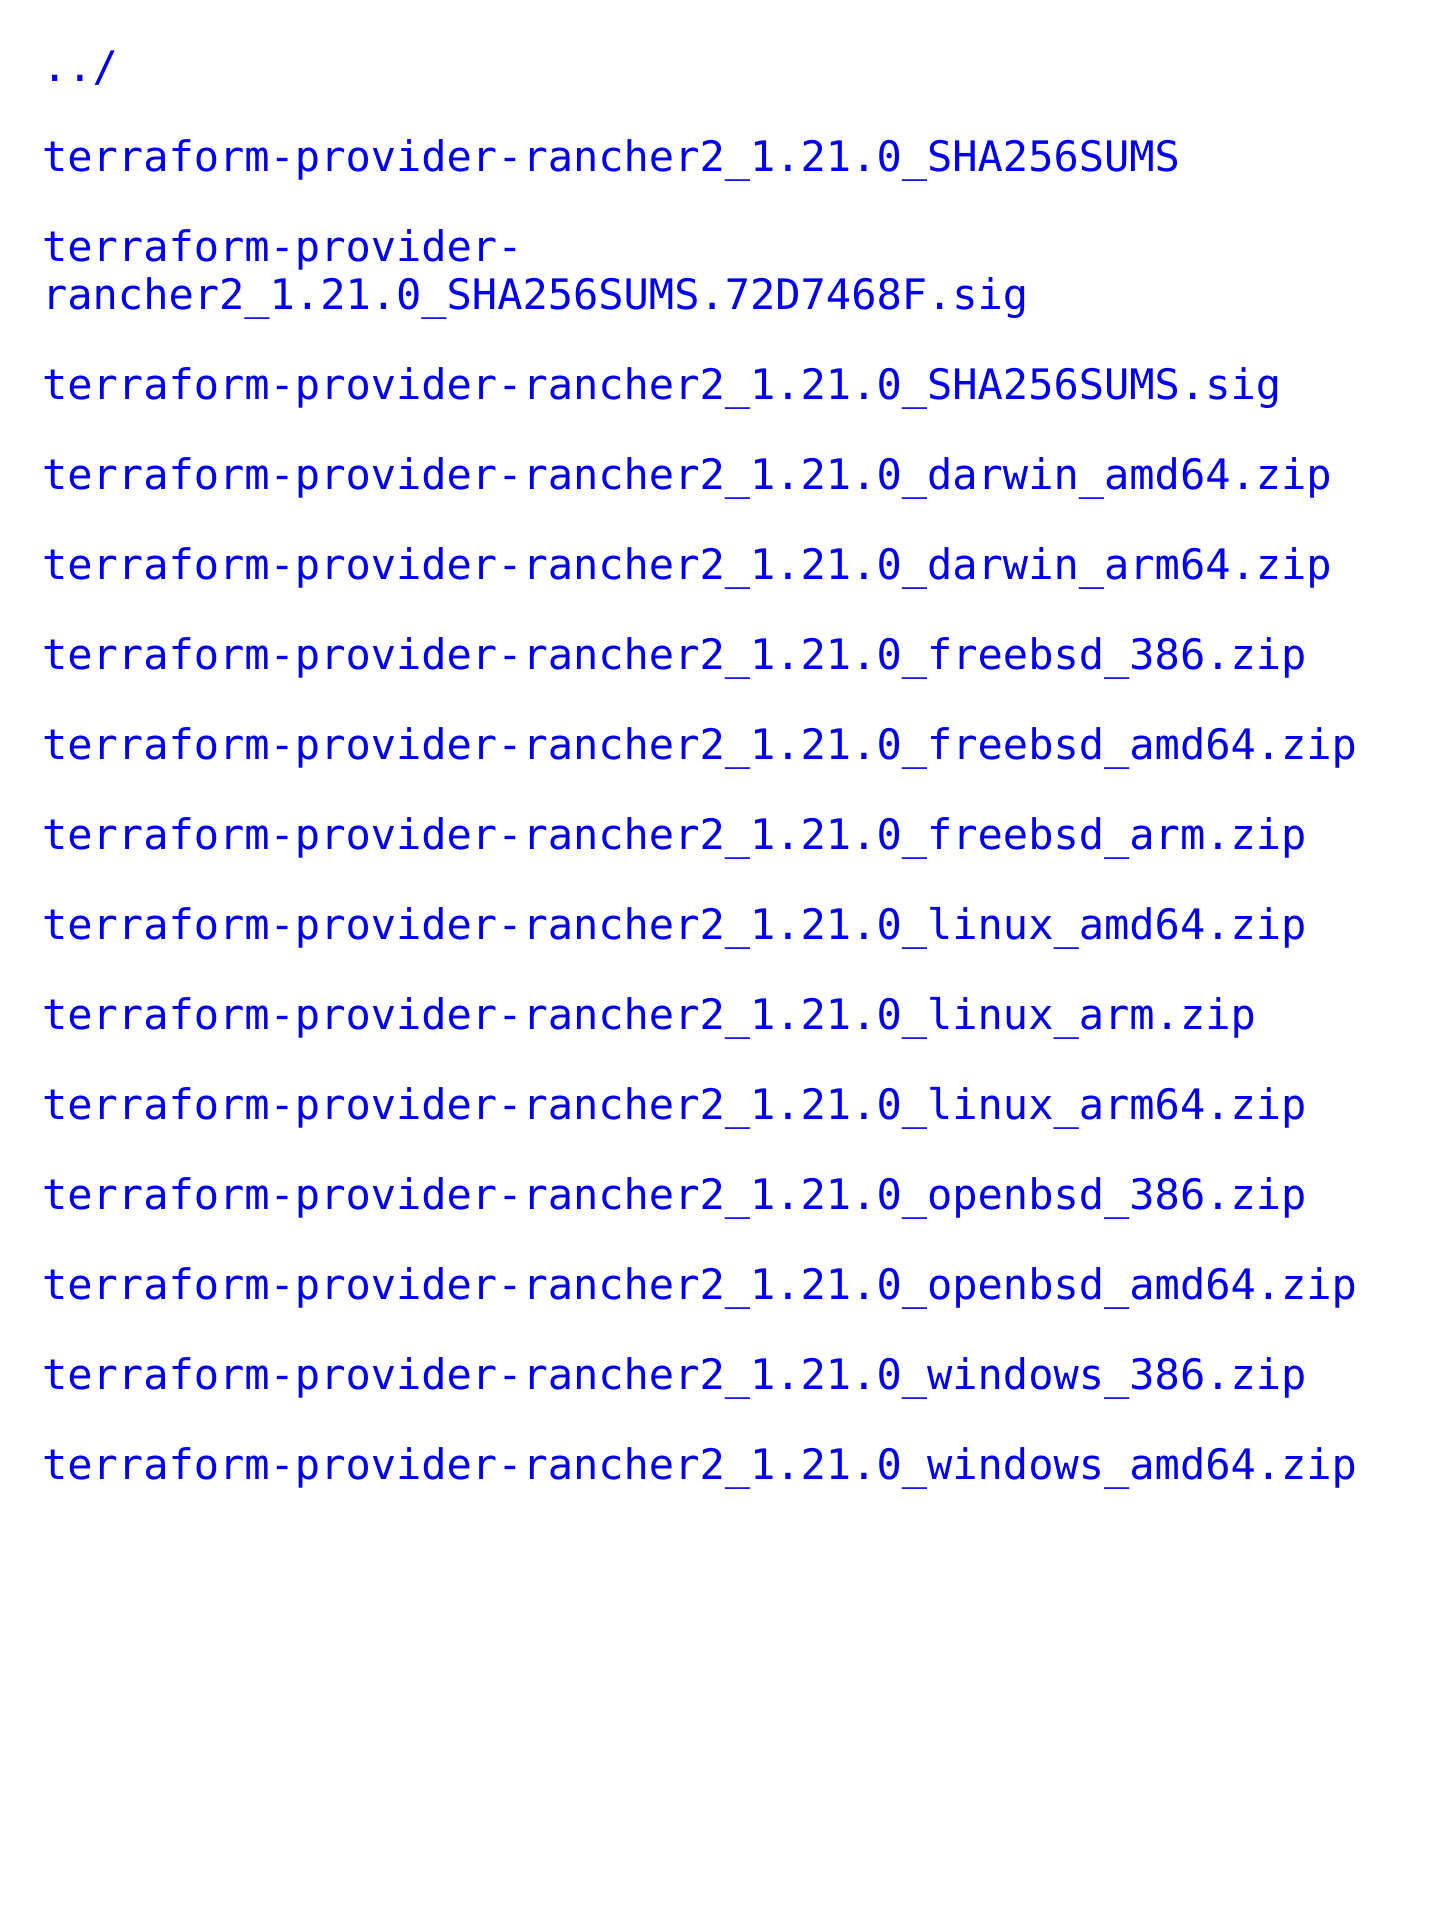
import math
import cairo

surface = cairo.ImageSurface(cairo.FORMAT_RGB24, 1432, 1907)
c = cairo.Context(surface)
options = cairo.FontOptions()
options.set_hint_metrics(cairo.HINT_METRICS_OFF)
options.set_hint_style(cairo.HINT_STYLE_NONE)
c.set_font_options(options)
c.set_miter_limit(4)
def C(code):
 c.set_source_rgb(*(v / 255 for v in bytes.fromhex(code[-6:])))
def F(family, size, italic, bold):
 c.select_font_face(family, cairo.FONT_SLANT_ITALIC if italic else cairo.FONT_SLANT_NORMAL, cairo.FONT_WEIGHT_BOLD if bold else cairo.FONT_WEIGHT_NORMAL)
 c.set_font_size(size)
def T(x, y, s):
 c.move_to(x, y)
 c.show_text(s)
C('ffffff')
c.paint()
F('DejaVu Sans Mono',42,0,0)
C('0000ee')
T(42,81,'../')
T(42,171,'terraform-provider-rancher2_1.21.0_SHA256SUMS')
T(42,261,'terraform-provider-')
T(42,309,'rancher2_1.21.0_SHA256SUMS.72D7468F.sig')
T(42,399,'terraform-provider-rancher2_1.21.0_SHA256SUMS.sig')
T(42,489,'terraform-provider-rancher2_1.21.0_darwin_amd64.zip')
T(42,579,'terraform-provider-rancher2_1.21.0_darwin_arm64.zip')
T(42,669,'terraform-provider-rancher2_1.21.0_freebsd_386.zip')
T(42,759,'terraform-provider-rancher2_1.21.0_freebsd_amd64.zip')
T(42,849,'terraform-provider-rancher2_1.21.0_freebsd_arm.zip')
T(42,939,'terraform-provider-rancher2_1.21.0_linux_amd64.zip')
T(42,1029,'terraform-provider-rancher2_1.21.0_linux_arm.zip')
T(42,1119,'terraform-provider-rancher2_1.21.0_linux_arm64.zip')
T(42,1209,'terraform-provider-rancher2_1.21.0_openbsd_386.zip')
T(42,1299,'terraform-provider-rancher2_1.21.0_openbsd_amd64.zip')
T(42,1389,'terraform-provider-rancher2_1.21.0_windows_386.zip')
T(42,1479,'terraform-provider-rancher2_1.21.0_windows_amd64.zip')
surface.write_to_png('o.png')
